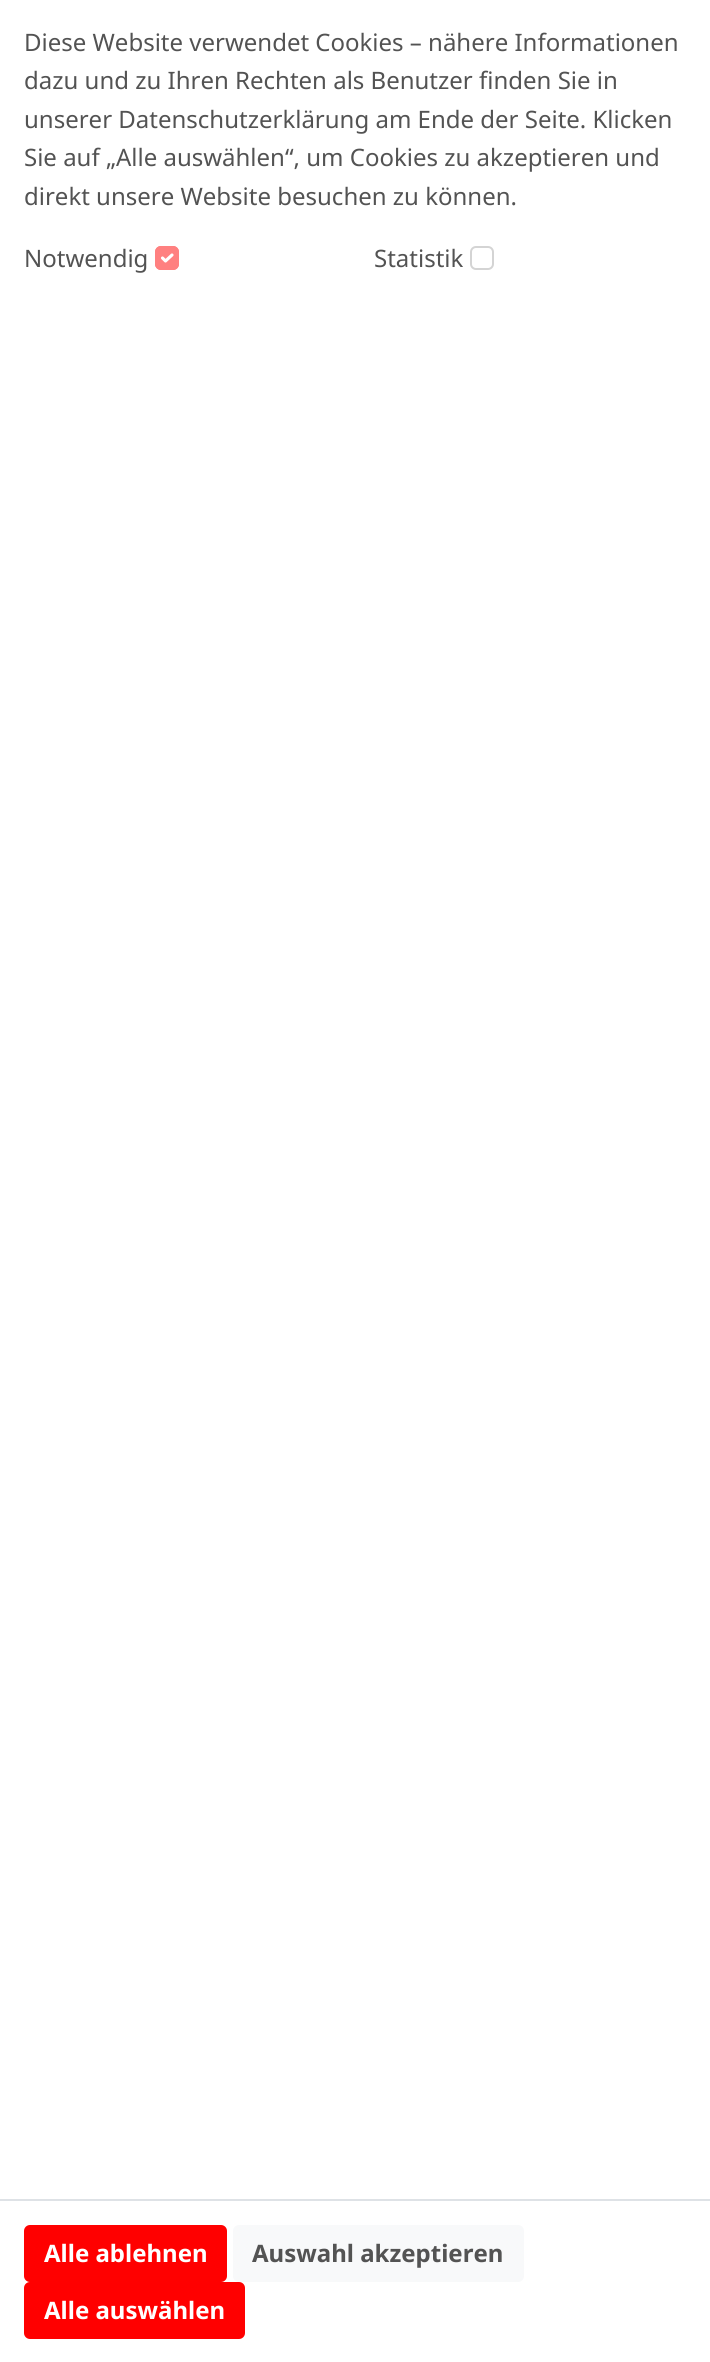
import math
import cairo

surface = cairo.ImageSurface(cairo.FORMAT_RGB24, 710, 2362)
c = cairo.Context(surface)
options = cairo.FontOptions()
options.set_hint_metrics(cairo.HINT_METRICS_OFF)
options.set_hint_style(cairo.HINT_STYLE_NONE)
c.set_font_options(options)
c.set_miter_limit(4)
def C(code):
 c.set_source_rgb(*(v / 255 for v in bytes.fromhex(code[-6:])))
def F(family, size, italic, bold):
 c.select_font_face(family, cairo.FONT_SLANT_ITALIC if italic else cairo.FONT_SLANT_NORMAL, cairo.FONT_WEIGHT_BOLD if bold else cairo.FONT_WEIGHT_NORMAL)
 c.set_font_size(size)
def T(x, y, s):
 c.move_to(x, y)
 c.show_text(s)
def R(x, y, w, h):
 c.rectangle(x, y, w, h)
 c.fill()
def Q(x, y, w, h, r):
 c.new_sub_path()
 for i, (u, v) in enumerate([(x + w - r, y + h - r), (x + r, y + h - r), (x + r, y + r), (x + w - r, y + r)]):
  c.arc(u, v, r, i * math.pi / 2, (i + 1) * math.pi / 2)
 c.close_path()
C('ffffff')
c.paint()
F('Noto Sans',24,0,0)
C('535353')
T(24,51,'Diese Website verwendet Cookies – nähere Informationen')
T(24,89,'dazu und zu Ihren Rechten als Benutzer finden Sie in')
T(24,128,'unserer Datenschutzerklärung am Ende der Seite. Klicken')
T(24,166,'Sie auf „Alle auswählen“, um Cookies zu akzeptieren und')
T(24,205,'direkt unsere Website besuchen zu können.')
T(24,267,'Notwendig')
C('ff8080')
Q(155,246,24,24,6)
c.fill()
c.new_path()
c.move_to(162.5,258)
c.line_to(165.5,261)
c.line_to(172,255)
C('ffffff')
c.set_line_width(3.1)
c.set_line_cap(cairo.LINE_CAP_ROUND)
c.set_line_join(cairo.LINE_JOIN_ROUND)
c.stroke()
Q(156,247,22,22,5)
C('ff8080')
c.set_line_width(2)
c.set_line_cap(cairo.LINE_CAP_BUTT)
c.set_line_join(cairo.LINE_JOIN_MITER)
c.stroke()
C('535353')
T(374,267,'Statistik')
Q(471,247,22,22,5)
C('d4d4d4')
c.stroke()
C('dee2e6')
R(0,2199,710,2)
C('ff0000')
Q(25,2226,201,55,5)
c.fill_preserve()
c.stroke()
F('Noto Sans',24,0,1)
C('ffffff')
T(44,2262,'Alle ablehnen')
C('f8f9fa')
Q(233,2225,291,57,6)
c.fill()
C('535353')
T(252,2262,'Auswahl akzeptieren')
C('ff0000')
Q(25,2283,219,55,5)
c.fill_preserve()
c.stroke()
C('ffffff')
T(44,2319,'Alle auswählen')
surface.write_to_png('o.png')
